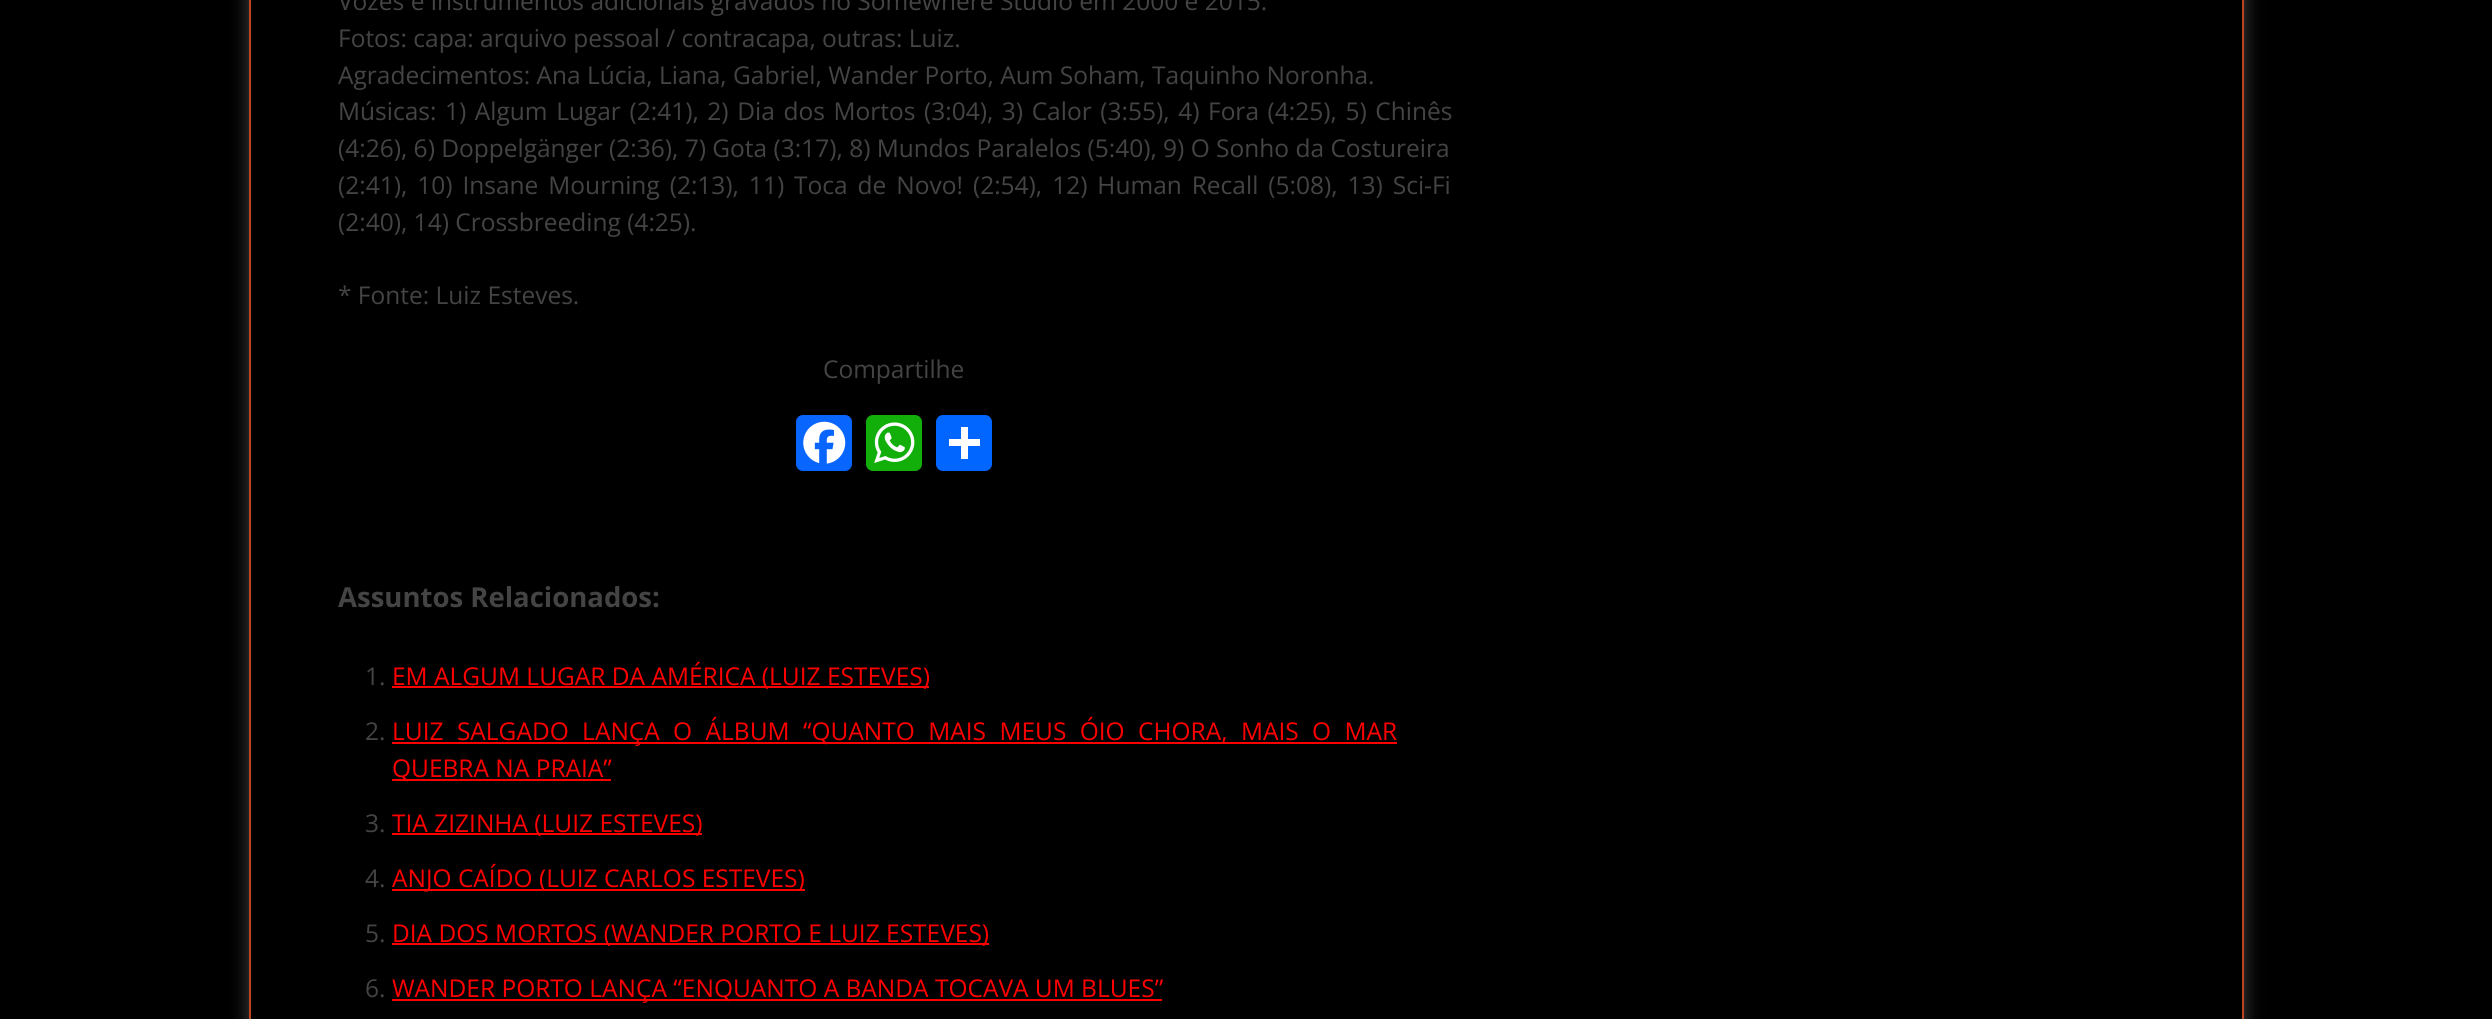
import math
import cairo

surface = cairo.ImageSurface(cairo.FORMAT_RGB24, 2492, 1019)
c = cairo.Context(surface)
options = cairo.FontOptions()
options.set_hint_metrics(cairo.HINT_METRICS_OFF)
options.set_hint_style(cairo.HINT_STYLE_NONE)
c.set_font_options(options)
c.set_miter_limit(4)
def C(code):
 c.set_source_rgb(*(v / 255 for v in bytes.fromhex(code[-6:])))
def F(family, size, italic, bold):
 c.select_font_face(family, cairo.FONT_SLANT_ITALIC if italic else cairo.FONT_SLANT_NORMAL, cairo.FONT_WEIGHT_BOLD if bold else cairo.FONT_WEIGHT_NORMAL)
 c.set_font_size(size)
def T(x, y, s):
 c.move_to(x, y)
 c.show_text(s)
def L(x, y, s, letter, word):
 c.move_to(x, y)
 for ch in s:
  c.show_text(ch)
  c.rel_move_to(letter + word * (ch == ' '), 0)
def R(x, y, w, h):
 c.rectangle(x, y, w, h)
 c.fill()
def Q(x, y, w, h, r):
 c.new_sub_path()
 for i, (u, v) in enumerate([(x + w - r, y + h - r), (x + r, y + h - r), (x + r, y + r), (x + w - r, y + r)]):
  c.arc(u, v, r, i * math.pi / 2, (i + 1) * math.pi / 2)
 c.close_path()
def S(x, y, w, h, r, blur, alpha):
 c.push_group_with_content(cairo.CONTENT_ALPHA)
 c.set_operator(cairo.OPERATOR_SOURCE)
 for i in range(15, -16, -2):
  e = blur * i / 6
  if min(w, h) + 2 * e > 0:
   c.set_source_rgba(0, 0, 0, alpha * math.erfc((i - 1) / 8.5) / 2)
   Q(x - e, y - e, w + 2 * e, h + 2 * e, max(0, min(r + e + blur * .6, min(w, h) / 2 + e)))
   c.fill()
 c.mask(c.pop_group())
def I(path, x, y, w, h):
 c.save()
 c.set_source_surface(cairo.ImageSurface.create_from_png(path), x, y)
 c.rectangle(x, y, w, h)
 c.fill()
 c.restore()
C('000000')
c.paint()
c.save()
c.set_fill_rule(cairo.FILL_RULE_EVEN_ODD)
c.new_path()
c.move_to(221,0)
c.line_to(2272,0)
c.line_to(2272,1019)
c.line_to(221,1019)
c.close_path()
c.move_to(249,-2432)
c.line_to(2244,-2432)
c.line_to(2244,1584)
c.line_to(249,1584)
c.close_path()
c.clip()
C('444444')
S(249,-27,1995,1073,0,9,1)
c.restore()
C('bc4320')
R(2242,0,2,1019)
R(249,0,2,1019)
F('Open Sans',24.5,0,0)
C('444444')
T(338,10,'Vozes e instrumentos adicionais gravados no Somewhere Studio em 2000 e 2015.')
T(338,47,'Fotos: capa: arquivo pessoal / contracapa, outras: Luiz.')
T(338,84,'Agradecimentos: Ana Lúcia, Liana, Gabriel, Wander Porto, Aum Soham, Taquinho Noronha.')
L(338,120,'Músicas: 1) Algum Lugar (2:41), 2) Dia dos Mortos (3:04), 3) Calor (3:55), 4) Fora (4:25), 5) Chinês',0,2.25)
T(338,157,'(4:26), 6) Doppelgänger (2:36), 7) Gota (3:17), 8) Mundos Paralelos (5:40), 9) O Sonho da Costureira')
L(338,194,'(2:41), 10) Insane Mourning (2:13), 11) Toca de Novo! (2:54), 12) Human Recall (5:08), 13) Sci-Fi',0,3.6)
T(338,231,'(2:40), 14) Crossbreeding (4:25).')
T(338,304,'* Fonte: Luiz Esteves.')
T(823,378,'Compartilhe')
C('0866ff')
Q(796,415,56,56,7)
c.fill()
I('1.png',803,421,43,43)
C('12af0a')
Q(866,415,56,56,7)
c.fill()
I('2.png',874,422,41,41)
C('0166ff')
Q(936,415,56,56,7)
c.fill()
C('ffffff')
R(961,427,7,32)
R(949,439,31,7)
F('Open Sans',27.5,0,1)
C('444444')
T(338,607,'Assuntos Relacionados:')
F('Open Sans',24.5,0,0)
T(365,685,'1.')
C('ff0000')
R(392,686,537,2)
T(392,685,'EM ALGUM LUGAR DA AMÉRICA (LUIZ ESTEVES)')
C('444444')
T(365,740,'2.')
C('ff0000')
R(392,742,1005,2)
L(392,740,'LUIZ SALGADO LANÇA O ÁLBUM “QUANTO MAIS MEUS ÓIO CHORA, MAIS O MAR',0,7)
R(392,779,219,2)
T(392,777,'QUEBRA NA PRAIA”')
C('444444')
T(365,832,'3.')
C('ff0000')
R(392,833,310,2)
T(392,832,'TIA ZIZINHA (LUIZ ESTEVES)')
C('444444')
T(365,887,'4.')
C('ff0000')
R(392,889,413,2)
T(392,887,'ANJO CAÍDO (LUIZ CARLOS ESTEVES)')
C('444444')
T(365,942,'5.')
C('ff0000')
R(392,943,597,2)
T(392,942,'DIA DOS MORTOS (WANDER PORTO E LUIZ ESTEVES)')
C('444444')
T(365,997,'6.')
C('ff0000')
R(392,999,770,2)
T(392,997,'WANDER PORTO LANÇA “ENQUANTO A BANDA TOCAVA UM BLUES”')
surface.write_to_png('o.png')
